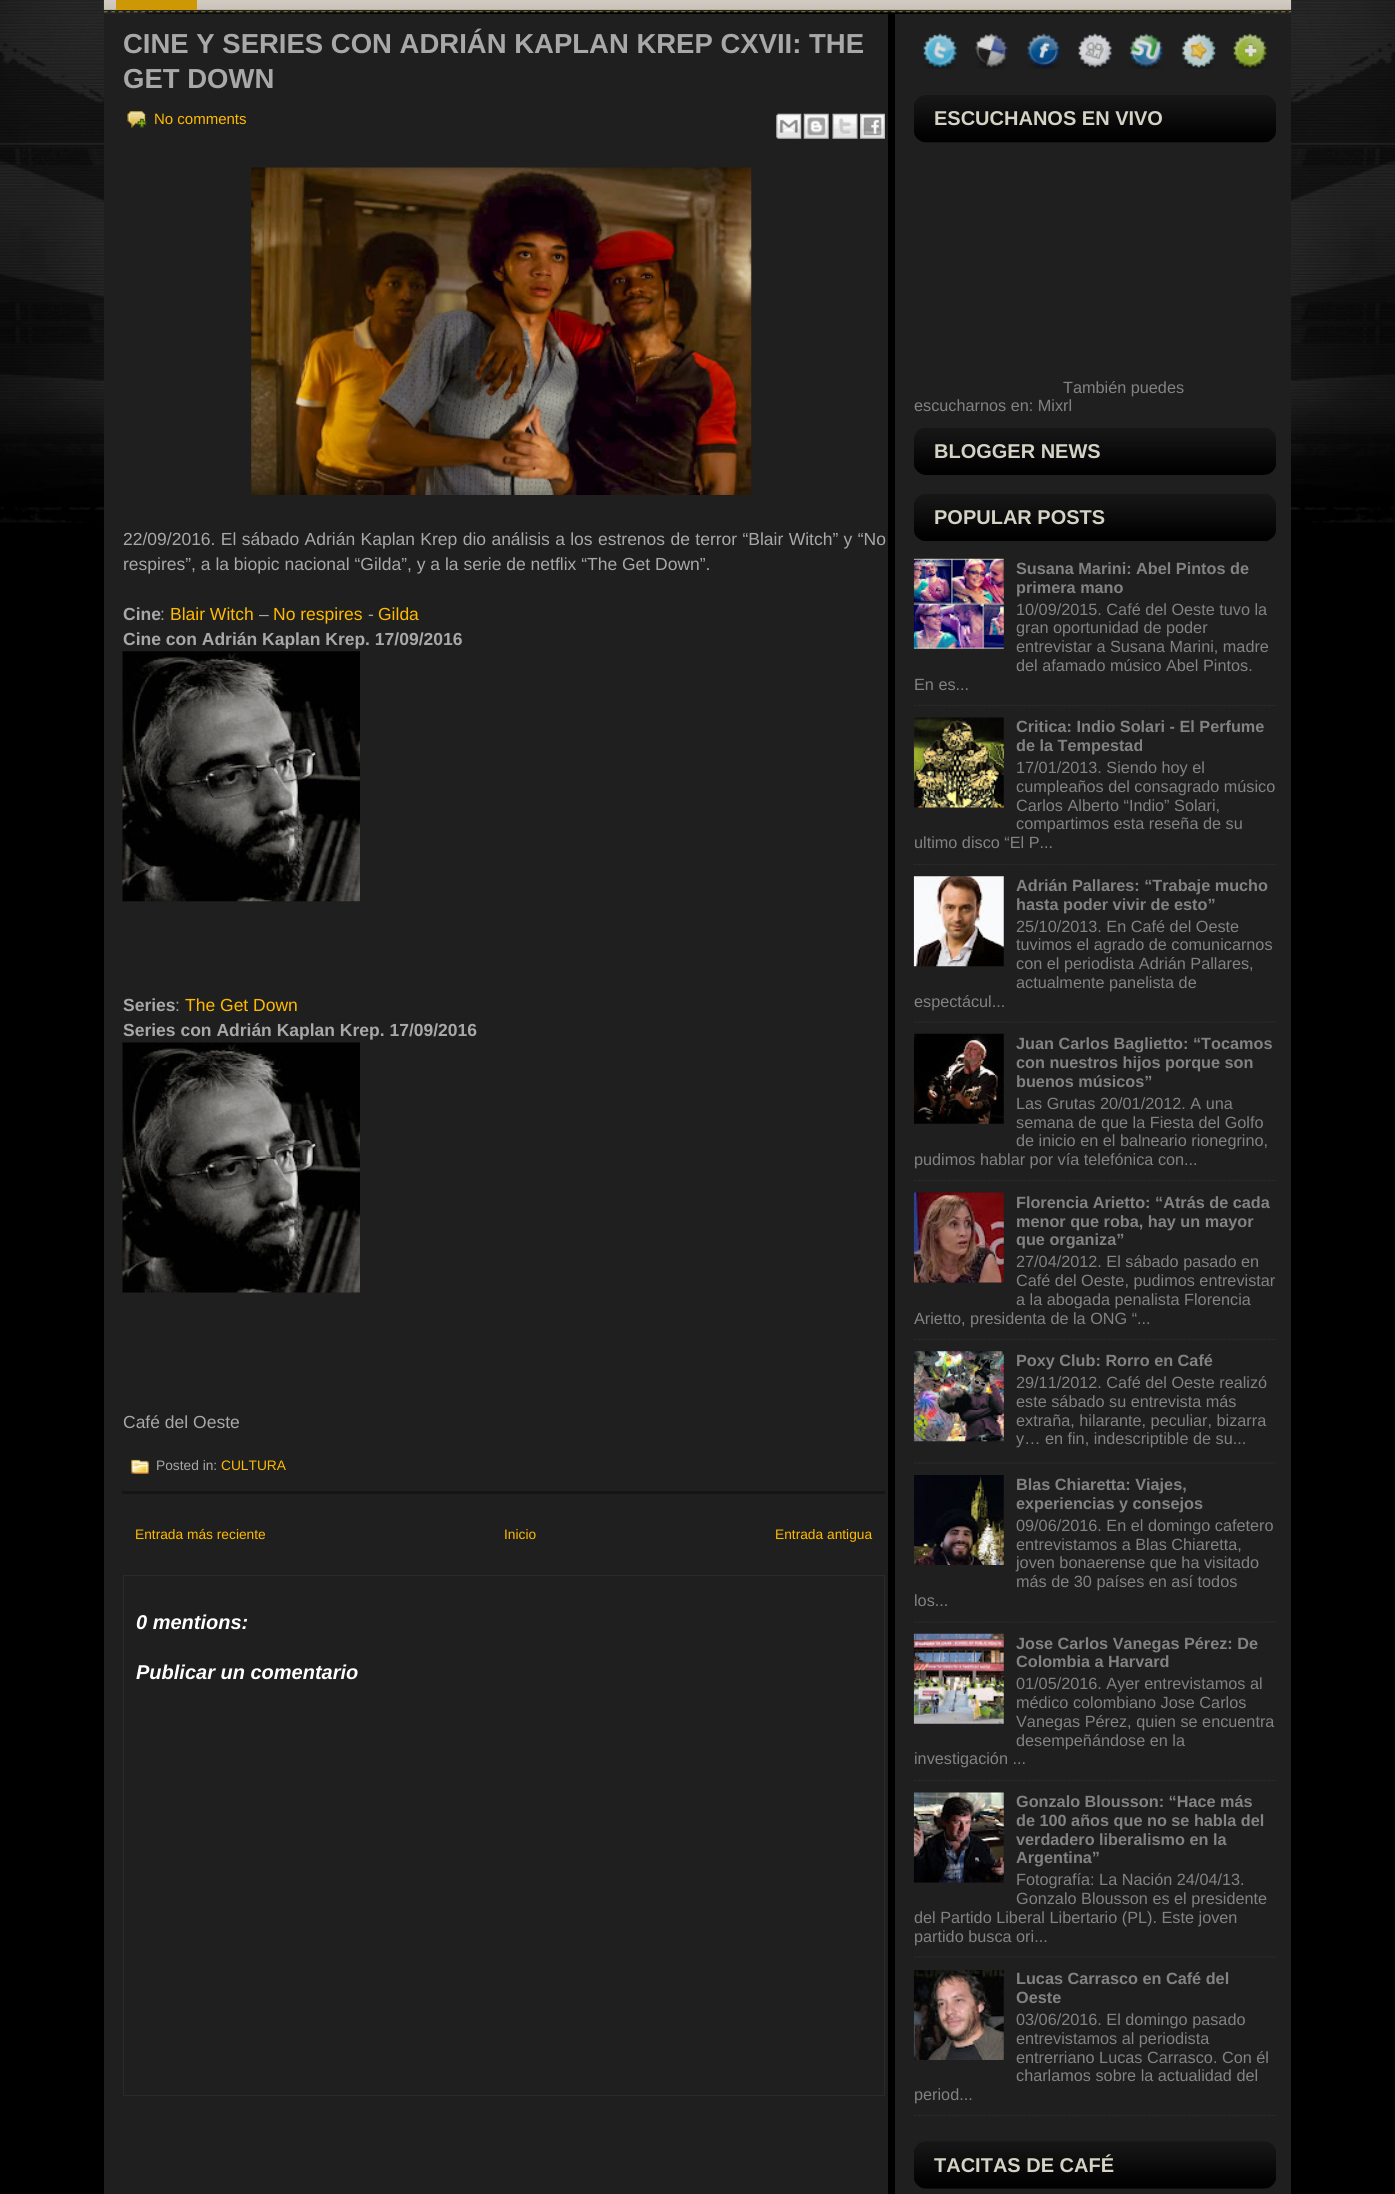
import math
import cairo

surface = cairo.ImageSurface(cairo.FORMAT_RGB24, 1395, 2194)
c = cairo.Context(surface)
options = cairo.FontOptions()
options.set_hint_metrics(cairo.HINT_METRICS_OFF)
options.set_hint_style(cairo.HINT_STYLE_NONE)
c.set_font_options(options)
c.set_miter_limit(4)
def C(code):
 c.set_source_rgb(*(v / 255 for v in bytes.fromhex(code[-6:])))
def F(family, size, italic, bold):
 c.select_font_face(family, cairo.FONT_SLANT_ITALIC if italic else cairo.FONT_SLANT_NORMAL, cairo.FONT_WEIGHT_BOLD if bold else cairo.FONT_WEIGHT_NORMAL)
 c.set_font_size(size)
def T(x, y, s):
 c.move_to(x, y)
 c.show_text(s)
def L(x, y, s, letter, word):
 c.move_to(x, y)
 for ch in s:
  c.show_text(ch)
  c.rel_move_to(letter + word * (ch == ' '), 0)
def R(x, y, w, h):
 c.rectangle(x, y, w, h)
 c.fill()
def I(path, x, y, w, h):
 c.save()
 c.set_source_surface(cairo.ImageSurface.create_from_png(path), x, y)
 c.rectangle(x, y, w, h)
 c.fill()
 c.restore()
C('000000')
c.paint()
I('1.png',0,0,1395,523)
I('2.png',103,0,1189,13)
C('cd9706')
R(116,0,81,10)
C('1f1f1f')
R(104,14,1187,2180)
C('000000')
R(888,14,7,2180)
C('151515')
R(122,1491,763,3)
F('Liberation Sans',27.5,0,1)
C('a8a8a8')
T(123,53,'CINE Y SERIES CON ADRIÁN KAPLAN KREP CXVII: THE')
T(123,88,'GET DOWN')
I('3.png',127,111,20,17)
F('Liberation Sans',15,0,0)
C('ffba00')
T(154,124,'No comments')
I('4.png',776,113,26,26)
I('5.png',803,113,26,26)
I('6.png',832,113,26,26)
I('7.png',860,113,25,26)
I('8.png',251,167,501,328)
F('Liberation Sans',17.5,0,0)
C('a8a8a8')
L(123,545,'22/09/2016. El sábado Adrián Kaplan Krep dio análisis a los estrenos de terror “Blair Witch” y “No',0,.5)
T(123,570,'respires”, a la biopic nacional “Gilda”, y a la serie de netflix “The Get Down”.')
F('Liberation Sans',17.5,0,1)
T(123,620,'Cine')
F('Liberation Sans',17.5,0,0)
T(160,620,':')
C('ffba00')
T(170,620,'Blair Witch')
C('a8a8a8')
T(259,620,'–')
C('ffba00')
T(273,620,'No respires')
C('a8a8a8')
T(368,620,'-')
C('ffba00')
T(378,620,'Gilda')
F('Liberation Sans',17.5,0,1)
C('a8a8a8')
T(123,645,'Cine con Adrián Kaplan Krep. 17/09/2016')
I('9.png',122,651,238,251)
T(123,1011,'Series')
F('Liberation Sans',17.5,0,0)
T(175,1011,':')
C('ffba00')
T(185,1011,'The Get Down')
F('Liberation Sans',17.5,0,1)
C('a8a8a8')
T(123,1036,'Series con Adrián Kaplan Krep. 17/09/2016')
I('10.png',122,1042,238,251)
F('Liberation Sans',17.5,0,0)
T(123,1428,'Café del Oeste')
I('11.png',131,1459,18,15)
F('Liberation Sans',13.75,0,0)
T(156,1470,'Posted in:')
C('ffba00')
T(221,1470,'CULTURA')
T(135,1539,'Entrada más reciente')
T(504,1539,'Inicio')
T(775,1539,'Entrada antigua')
c.rectangle(123.5,1575.5,761,520)
C('2a2a2a')
c.set_line_width(1)
c.stroke()
F('Liberation Sans',20,1,1)
C('ffffff')
T(136,1629,'0 mentions:')
T(136,1679,'Publicar un comentario')
I('12.png',923,33,35,36)
I('13.png',975,33,33,36)
I('14.png',1026,33,35,36)
I('15.png',1078,33,35,36)
I('16.png',1129,33,34,36)
I('17.png',1181,33,35,36)
I('18.png',1233,33,35,36)
I('19.png',914,95,362,48)
F('Liberation Sans',20,0,1)
C('d3d2c4')
T(934,125,'ESCUCHANOS EN VIVO')
F('Liberation Sans',16.25,0,0)
C('838282')
T(1063,393,'También puedes')
T(914,411,'escucharnos en: Mixrl')
I('20.png',914,428,362,47)
F('Liberation Sans',20,0,1)
C('d3d2c4')
T(934,458,'BLOGGER NEWS')
I('21.png',914,494,362,47)
T(934,524,'POPULAR POSTS')
c.new_path()
c.move_to(914,705.5)
c.line_to(1276,705.5)
C('302f2f')
c.set_line_width(1.2)
c.set_dash([1.25,1.25])
c.stroke()
I('22.png',913,558,91,91)
F('Liberation Sans',16.25,0,1)
C('838282')
T(1016,574,'Susana Marini: Abel Pintos de')
T(1016,593,'primera mano')
F('Liberation Sans',16.25,0,0)
T(1016,615,'10/09/2015. Café del Oeste tuvo la')
T(1016,633,'gran oportunidad de poder')
T(1016,652,'entrevistar a Susana Marini, madre')
T(1016,671,'del afamado músico Abel Pintos.')
T(914,690,'En es...')
c.new_path()
c.move_to(914,864.5)
c.line_to(1276,864.5)
C('302f2f')
c.stroke()
I('23.png',913,717,91,91)
F('Liberation Sans',16.25,0,1)
C('838282')
T(1016,732,'Critica: Indio Solari - El Perfume')
T(1016,751,'de la Tempestad')
F('Liberation Sans',16.25,0,0)
T(1016,773,'17/01/2013. Siendo hoy el')
T(1016,792,'cumpleaños del consagrado músico')
T(1016,811,'Carlos Alberto “Indio” Solari,')
T(1016,829,'compartimos esta reseña de su')
T(914,848,'ultimo disco “El P...')
c.new_path()
c.move_to(914,1022)
c.line_to(1276,1022)
C('302f2f')
c.stroke()
I('24.png',913,876,91,91)
F('Liberation Sans',16.25,0,1)
C('838282')
T(1016,891,'Adrián Pallares: “Trabaje mucho')
T(1016,910,'hasta poder vivir de esto”')
F('Liberation Sans',16.25,0,0)
T(1016,932,'25/10/2013. En Café del Oeste')
T(1016,950,'tuvimos el agrado de comunicarnos')
T(1016,969,'con el periodista Adrián Pallares,')
T(1016,988,'actualmente panelista de')
T(914,1007,'espectácul...')
c.new_path()
c.move_to(914,1180.5)
c.line_to(1276,1180.5)
C('302f2f')
c.stroke()
I('25.png',914,1033,90,91)
F('Liberation Sans',16.25,0,1)
C('838282')
T(1016,1049,'Juan Carlos Baglietto: “Tocamos')
T(1016,1068,'con nuestros hijos porque son')
T(1016,1087,'buenos músicos”')
F('Liberation Sans',16.25,0,0)
T(1016,1109,'Las Grutas 20/01/2012. A una')
T(1016,1128,'semana de que la Fiesta del Golfo')
T(1016,1146,'de inicio en el balneario rionegrino,')
T(914,1165,'pudimos hablar por vía telefónica con...')
c.new_path()
c.move_to(914,1339.5)
c.line_to(1276,1339.5)
C('302f2f')
c.stroke()
I('26.png',913,1192,91,91)
F('Liberation Sans',16.25,0,1)
C('838282')
T(1016,1208,'Florencia Arietto: “Atrás de cada')
T(1016,1227,'menor que roba, hay un mayor')
T(1016,1245,'que organiza”')
F('Liberation Sans',16.25,0,0)
T(1016,1267,'27/04/2012. El sábado pasado en')
T(1016,1286,'Café del Oeste, pudimos entrevistar')
T(1016,1305,'a la abogada penalista Florencia')
T(914,1324,'Arietto, presidenta de la ONG “...')
c.new_path()
c.move_to(914,1463)
c.line_to(1276,1463)
C('302f2f')
c.stroke()
I('27.png',913,1351,91,91)
F('Liberation Sans',16.25,0,1)
C('838282')
T(1016,1366,'Poxy Club: Rorro en Café')
F('Liberation Sans',16.25,0,0)
T(1016,1388,'29/11/2012. Café del Oeste realizó')
T(1016,1407,'este sábado su entrevista más')
T(1016,1426,'extraña, hilarante, peculiar, bizarra')
T(1016,1444,'y… en fin, indescriptible de su...')
c.new_path()
c.move_to(914,1622)
c.line_to(1276,1622)
C('302f2f')
c.stroke()
I('28.png',914,1475,90,90)
F('Liberation Sans',16.25,0,1)
C('838282')
T(1016,1490,'Blas Chiaretta: Viajes,')
T(1016,1509,'experiencias y consejos')
F('Liberation Sans',16.25,0,0)
T(1016,1531,'09/06/2016. En el domingo cafetero')
T(1016,1550,'entrevistamos a Blas Chiaretta,')
T(1016,1568,'joven bonaerense que ha visitado')
T(1016,1587,'más de 30 países en así todos')
T(914,1606,'los...')
c.new_path()
c.move_to(914,1780.5)
c.line_to(1276,1780.5)
C('302f2f')
c.stroke()
I('29.png',913,1633,91,91)
F('Liberation Sans',16.25,0,1)
C('838282')
T(1016,1649,'Jose Carlos Vanegas Pérez: De')
T(1016,1667,'Colombia a Harvard')
F('Liberation Sans',16.25,0,0)
T(1016,1689,'01/05/2016. Ayer entrevistamos al')
T(1016,1708,'médico colombiano Jose Carlos')
T(1016,1727,'Vanegas Pérez, quien se encuentra')
T(1016,1746,'desempeñándose en la')
T(914,1764,'investigación ...')
c.new_path()
c.move_to(914,1957)
c.line_to(1276,1957)
C('302f2f')
c.stroke()
I('30.png',913,1792,91,91)
F('Liberation Sans',16.25,0,1)
C('838282')
T(1016,1807,'Gonzalo Blousson: “Hace más')
T(1016,1826,'de 100 años que no se habla del')
T(1016,1845,'verdadero liberalismo en la')
T(1016,1863,'Argentina”')
F('Liberation Sans',16.25,0,0)
T(1016,1885,'Fotografía: La Nación 24/04/13.')
T(1016,1904,'Gonzalo Blousson es el presidente')
T(914,1923,'del Partido Liberal Libertario (PL). Este joven')
T(914,1942,'partido busca ori...')
c.new_path()
c.move_to(914,2115.5)
c.line_to(1276,2115.5)
C('302f2f')
c.stroke()
I('31.png',913,1970,91,90)
F('Liberation Sans',16.25,0,1)
C('838282')
T(1016,1984,'Lucas Carrasco en Café del')
T(1016,2003,'Oeste')
F('Liberation Sans',16.25,0,0)
T(1016,2025,'03/06/2016. El domingo pasado')
T(1016,2044,'entrevistamos al periodista')
T(1016,2063,'entrerriano Lucas Carrasco. Con él')
T(1016,2081,'charlamos sobre la actualidad del')
T(914,2100,'period...')
I('32.png',914,2141,362,48)
F('Liberation Sans',20,0,1)
C('d3d2c4')
T(934,2172,'TACITAS DE CAFÉ')
surface.write_to_png('o.png')
